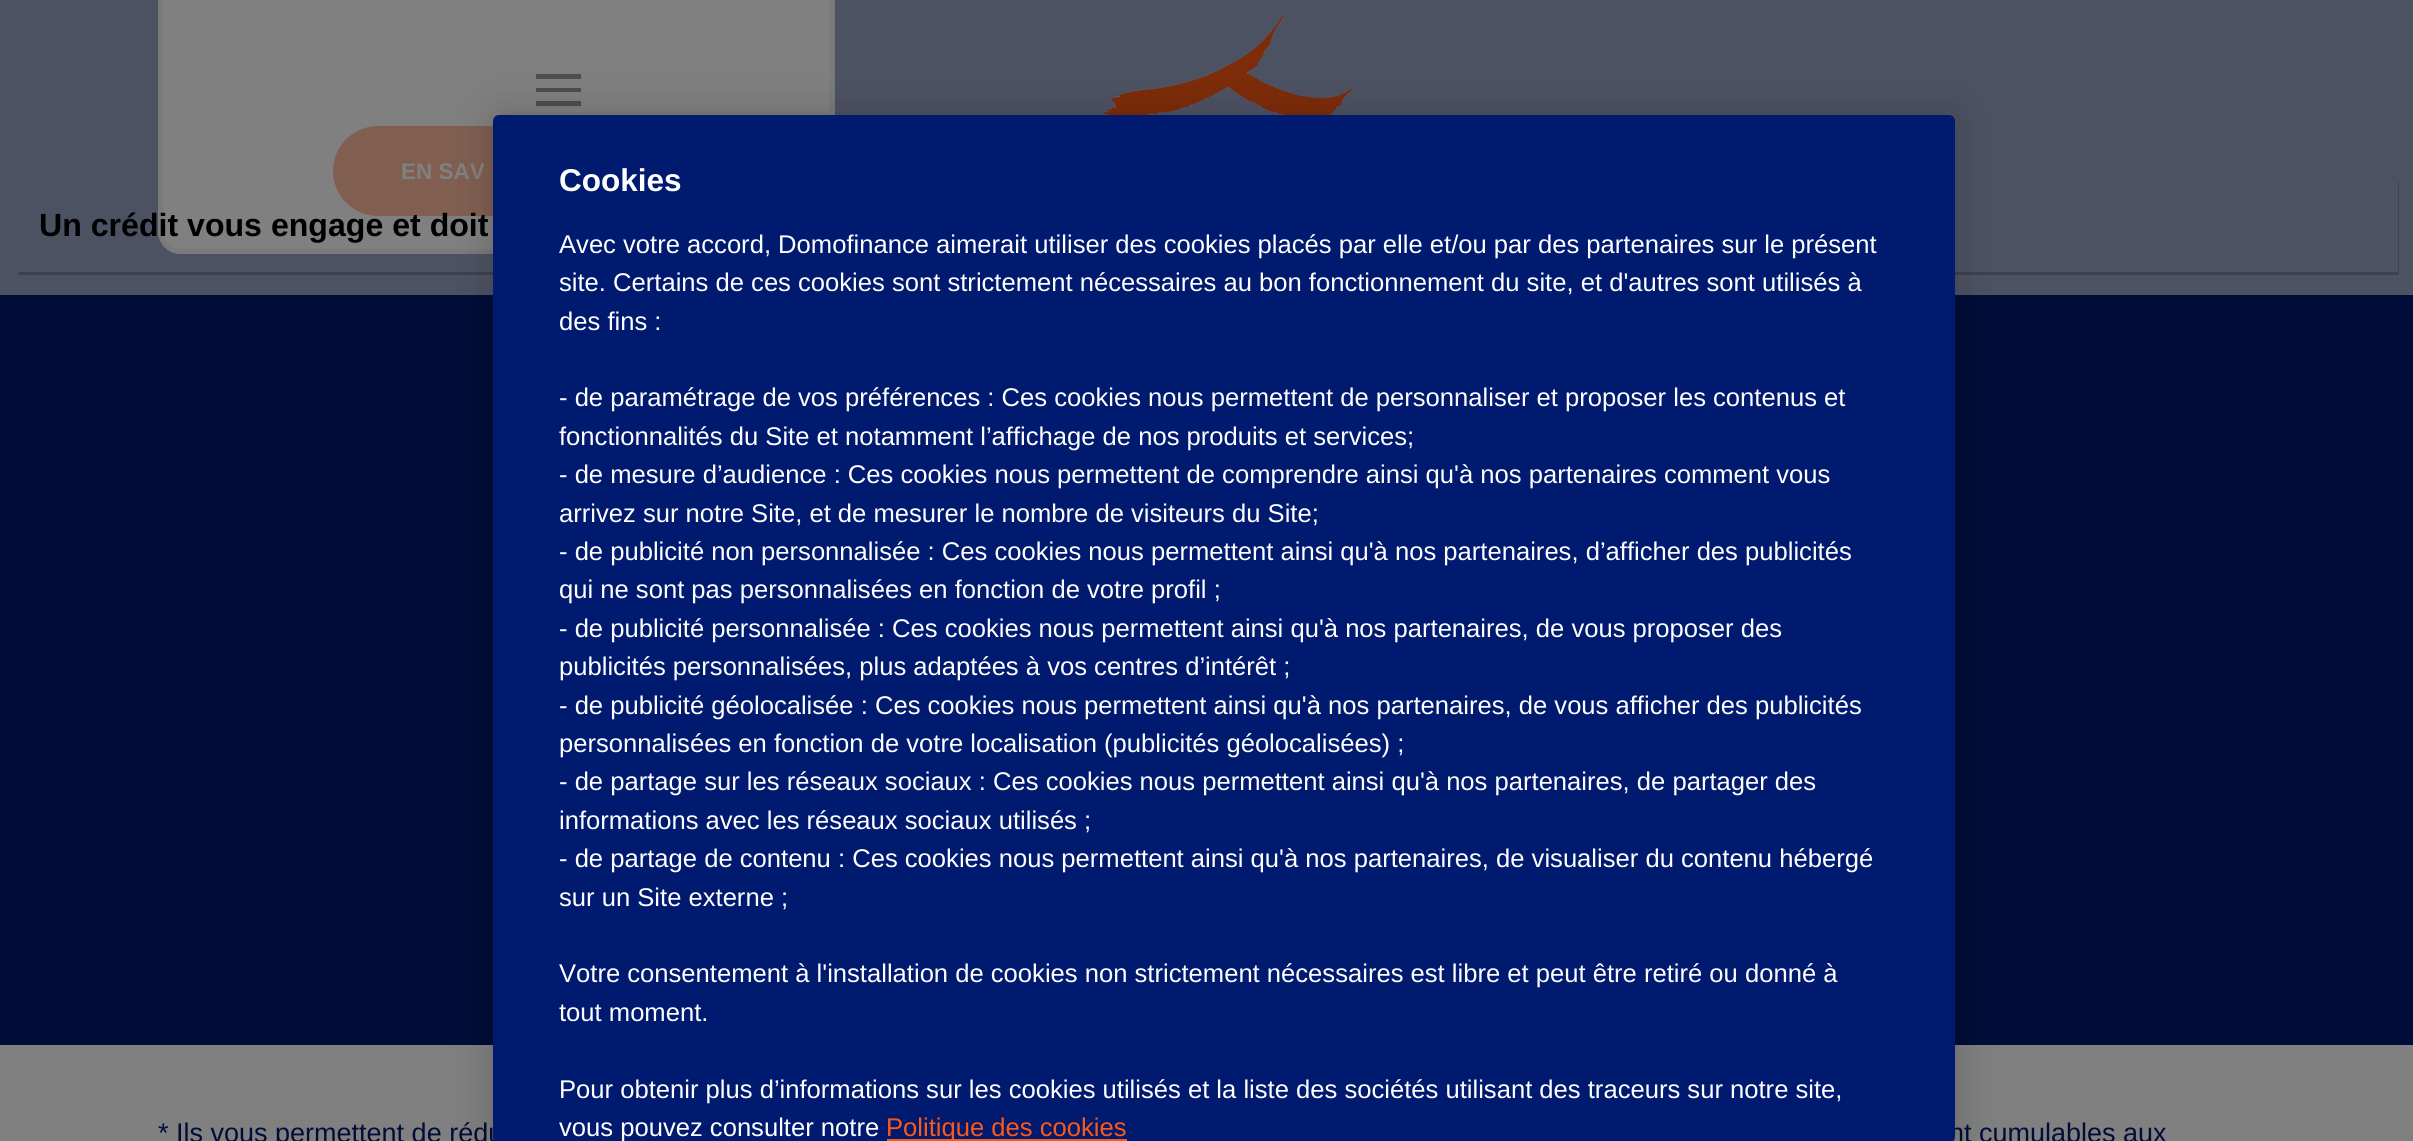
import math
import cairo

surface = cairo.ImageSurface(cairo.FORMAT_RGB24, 2413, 1141)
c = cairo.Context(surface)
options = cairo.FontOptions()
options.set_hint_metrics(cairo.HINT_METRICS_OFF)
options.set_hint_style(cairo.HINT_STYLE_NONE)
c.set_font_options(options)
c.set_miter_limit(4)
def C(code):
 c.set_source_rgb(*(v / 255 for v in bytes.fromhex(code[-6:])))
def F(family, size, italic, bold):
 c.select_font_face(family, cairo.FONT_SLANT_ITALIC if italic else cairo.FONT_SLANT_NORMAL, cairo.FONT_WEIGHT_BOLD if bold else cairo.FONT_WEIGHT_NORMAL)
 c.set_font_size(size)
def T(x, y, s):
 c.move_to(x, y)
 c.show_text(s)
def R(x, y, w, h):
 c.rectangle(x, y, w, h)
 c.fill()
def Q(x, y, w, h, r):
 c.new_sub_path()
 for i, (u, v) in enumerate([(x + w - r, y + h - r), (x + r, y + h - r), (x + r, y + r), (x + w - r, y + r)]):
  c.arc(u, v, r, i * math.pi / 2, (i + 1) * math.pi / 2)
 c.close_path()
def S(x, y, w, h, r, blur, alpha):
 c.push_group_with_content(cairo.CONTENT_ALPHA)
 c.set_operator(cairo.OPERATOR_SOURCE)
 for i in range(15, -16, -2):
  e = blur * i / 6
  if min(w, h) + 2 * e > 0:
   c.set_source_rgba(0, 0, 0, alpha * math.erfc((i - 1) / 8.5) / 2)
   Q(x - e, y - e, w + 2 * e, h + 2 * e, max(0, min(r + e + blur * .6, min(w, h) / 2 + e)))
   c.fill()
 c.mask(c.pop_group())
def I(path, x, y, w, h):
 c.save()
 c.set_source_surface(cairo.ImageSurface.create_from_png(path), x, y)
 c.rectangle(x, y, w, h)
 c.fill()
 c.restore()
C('808080')
c.paint()
C('000d38')
R(0,0,2413,1045)
C('808080')
Q(158,-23,677,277,23)
c.fill()
Q(160.5,-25.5,672,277,20.5)
c.set_source_rgba(0.427,0.427,0.427,0.8)
c.set_line_width(5)
c.stroke()
C('7f2c0b')
Q(333,126,326,90,45)
c.fill()
F('Liberation Sans',22.5,0,1)
C('808080')
T(401,179,'EN SAV')
F('Liberation Sans',27,0,0)
C('000d38')
T(158,1142,'* Ils vous permettent de rédu')
T(1949,1142,'nt cumulables aux')
c.set_source_rgba(0.502,0.502,0.502,0.6)
R(0,0,2413,295)
C('4d4d4d')
R(536,88,45,4)
R(536,74,45,5)
R(536,101,45,5)
I('1.png',1102,14,251,101)
C('3d424f')
c.new_path()
c.move_to(18,272)
c.line_to(18,275)
c.line_to(2399,275)
c.line_to(2399,182)
c.line_to(2398,182)
c.line_to(2398,272)
c.close_path()
c.fill()
F('Liberation Sans',32.1,0,1)
C('000000')
T(39,236,'Un crédit vous engage et doit')
C('000000')
S(493,115,1462,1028,6,20,.2)
C('001a70')
Q(493,115,1462,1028,6)
c.fill()
F('Liberation Sans',31.5,0,1)
C('ffffff')
T(559,191,'Cookies')
F('Liberation Sans',25.6,0,0)
T(559,253,'Avec votre accord, Domofinance aimerait utiliser des cookies placés par elle et/ou par des partenaires sur le présent')
T(559,291,'site. Certains de ces cookies sont strictement nécessaires au bon fonctionnement du site, et d\'autres sont utilisés à')
T(559,330,'des fins :')
T(559,406,'- de paramétrage de vos préférences : Ces cookies nous permettent de personnaliser et proposer les contenus et')
T(559,445,'fonctionnalités du Site et notamment l’affichage de nos produits et services;')
T(559,483,'- de mesure d’audience : Ces cookies nous permettent de comprendre ainsi qu\'à nos partenaires comment vous')
T(559,522,'arrivez sur notre Site, et de mesurer le nombre de visiteurs du Site;')
T(559,560,'- de publicité non personnalisée : Ces cookies nous permettent ainsi qu\'à nos partenaires, d’afficher des publicités')
T(559,598,'qui ne sont pas personnalisées en fonction de votre profil ;')
T(559,637,'- de publicité personnalisée : Ces cookies nous permettent ainsi qu\'à nos partenaires, de vous proposer des')
T(559,675,'publicités personnalisées, plus adaptées à vos centres d’intérêt ;')
T(559,714,'- de publicité géolocalisée : Ces cookies nous permettent ainsi qu\'à nos partenaires, de vous afficher des publicités')
T(559,752,'personnalisées en fonction de votre localisation (publicités géolocalisées) ;')
T(559,790,'- de partage sur les réseaux sociaux : Ces cookies nous permettent ainsi qu\'à nos partenaires, de partager des')
T(559,829,'informations avec les réseaux sociaux utilisés ;')
T(559,867,'- de partage de contenu : Ces cookies nous permettent ainsi qu\'à nos partenaires, de visualiser du contenu hébergé')
T(559,906,'sur un Site externe ;')
T(559,982,'Votre consentement à l\'installation de cookies non strictement nécessaires est libre et peut être retiré ou donné à')
T(559,1021,'tout moment.')
T(559,1098,'Pour obtenir plus d’informations sur les cookies utilisés et la liste des sociétés utilisant des traceurs sur notre site,')
T(559,1136,'vous pouvez consulter notre')
C('fe5815')
R(887,1139,240,2)
T(886,1136,'Politique des cookies')
surface.write_to_png('o.png')
